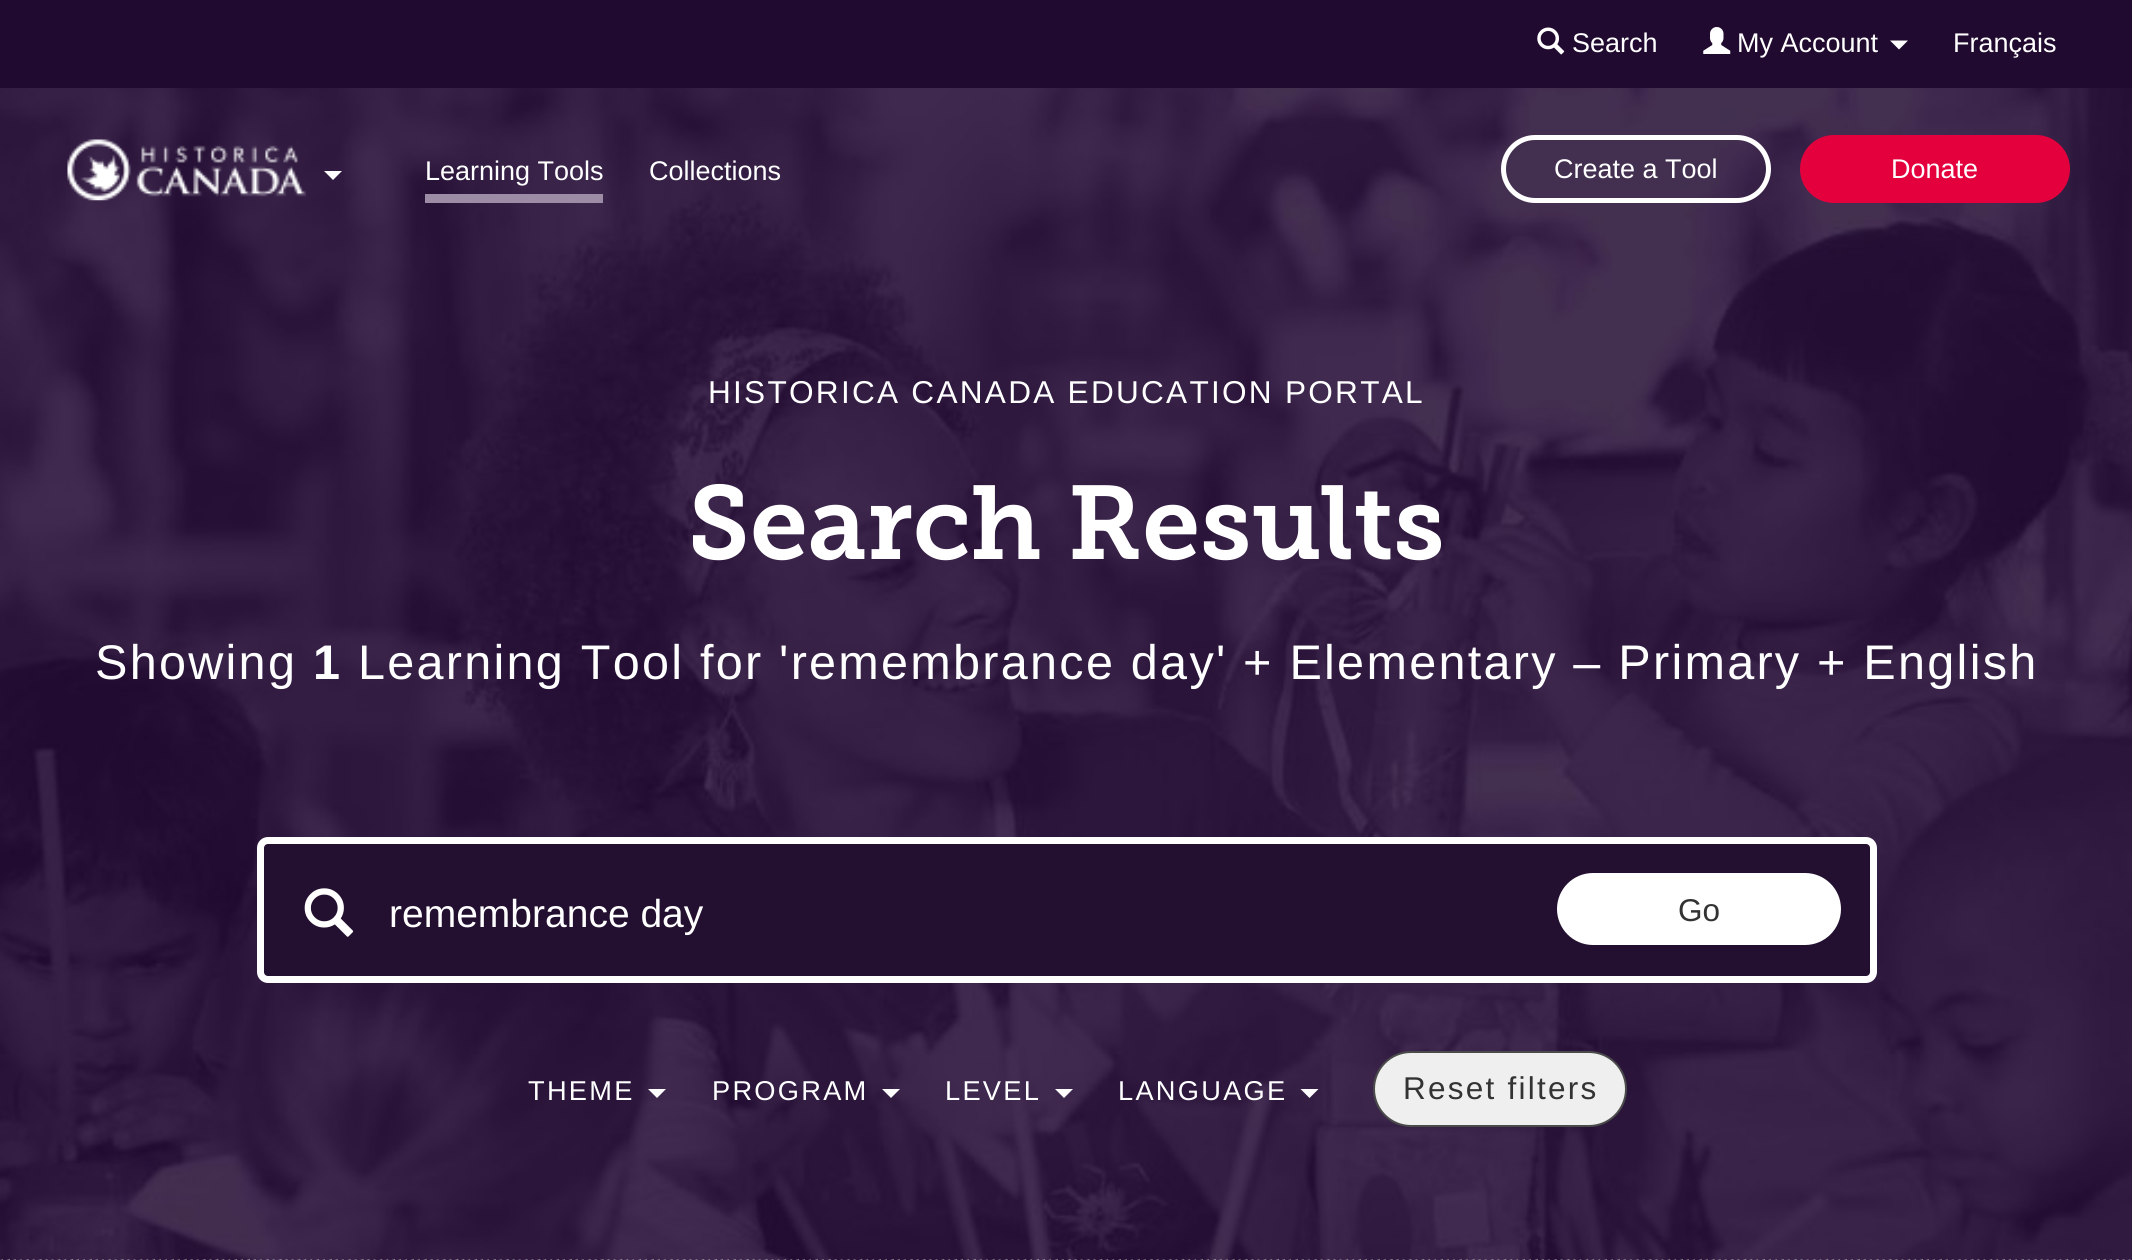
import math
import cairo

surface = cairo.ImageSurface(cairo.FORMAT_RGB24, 2132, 1260)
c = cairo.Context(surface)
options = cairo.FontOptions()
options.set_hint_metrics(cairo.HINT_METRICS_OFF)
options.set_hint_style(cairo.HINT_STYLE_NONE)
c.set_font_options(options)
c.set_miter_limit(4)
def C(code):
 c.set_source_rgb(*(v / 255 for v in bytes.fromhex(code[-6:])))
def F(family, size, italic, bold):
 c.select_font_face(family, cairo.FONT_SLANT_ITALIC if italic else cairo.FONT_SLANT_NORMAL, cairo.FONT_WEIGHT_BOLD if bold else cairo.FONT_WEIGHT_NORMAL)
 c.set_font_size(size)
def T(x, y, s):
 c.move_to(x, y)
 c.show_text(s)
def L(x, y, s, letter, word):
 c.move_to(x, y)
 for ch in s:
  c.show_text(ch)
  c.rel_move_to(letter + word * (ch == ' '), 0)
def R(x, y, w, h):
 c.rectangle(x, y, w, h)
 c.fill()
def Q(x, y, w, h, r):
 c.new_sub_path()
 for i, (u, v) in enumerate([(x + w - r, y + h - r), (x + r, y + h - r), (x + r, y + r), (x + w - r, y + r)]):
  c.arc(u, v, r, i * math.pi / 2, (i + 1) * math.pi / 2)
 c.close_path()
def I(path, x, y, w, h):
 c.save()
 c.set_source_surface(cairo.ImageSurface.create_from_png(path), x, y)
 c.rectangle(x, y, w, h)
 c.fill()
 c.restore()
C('f1f1f1')
c.paint()
I('5.png',0,88,2132,1172)
I('1.png',67,139,239,62)
C('ffffff')
c.new_path()
c.move_to(324,171)
c.line_to(342,171)
c.line_to(333,180)
c.close_path()
c.fill()
C('9c8ca6')
R(425,194,178,9)
F('Liberation Sans',27,0,0)
C('ffffff')
T(425,180,'Learning Tools')
T(649,180,'Collections')
C('210a2f')
R(0,0,2132,88)
I('2.png',1537,27,28,28)
C('ffffff')
T(1572,52,'Search')
I('3.png',1703,27,28,27)
T(1737,52,'My Account')
c.new_path()
c.move_to(1890,40.5)
c.line_to(1908,40.5)
c.line_to(1899,49.5)
c.close_path()
c.fill()
T(1953,52,'Français')
Q(1503.5,137.5,265,63,31.5)
c.set_line_width(5)
c.stroke()
T(1554,178,'Create a Tool')
C('e4003d')
Q(1802.5,137.5,265,63,31.5)
c.fill_preserve()
c.stroke()
C('ffffff')
T(1891,178,'Donate')
F('Liberation Sans',31.6,0,0)
L(708,403,'HISTORICA CANADA EDUCATION PORTAL',2.25,0)
F('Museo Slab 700 SemiBold',104,0,0)
T(688,559,'Search Results')
F('Liberation Sans',48.6,0,0)
L(95,679,'Showing',2.25,0)
F('Liberation Sans',48.6,0,1)
L(313,679,'1',2.25,0)
F('Liberation Sans',48.6,0,0)
L(358,679,'Learning Tool for \'remembrance day\' + Elementary – Primary + English',2.25,-.1)
C('230f2f')
Q(260.5,840.5,1613,139,7.5)
c.fill_preserve()
C('ffffff')
c.set_line_width(7)
c.stroke()
I('4.png',304,888,50,49)
F('Liberation Sans',39,0,0)
T(389,927,'remembrance day')
Q(1557,873,284,72,36)
c.fill()
F('Liberation Sans',31.5,0,0)
C('333333')
T(1678,921,'Go')
F('Liberation Sans',27.25,0,0)
C('ffffff')
L(528,1100,'THEME',2.25,0)
c.new_path()
c.move_to(648,1089)
c.line_to(666,1089)
c.line_to(657,1098)
c.close_path()
c.fill()
L(712,1100,'PROGRAM',2.25,0)
c.new_path()
c.move_to(882,1089)
c.line_to(900,1089)
c.line_to(891,1098)
c.close_path()
c.fill()
L(945,1100,'LEVEL',2.25,0)
c.new_path()
c.move_to(1055,1089)
c.line_to(1073,1089)
c.line_to(1064,1098)
c.close_path()
c.fill()
L(1118,1100,'LANGUAGE',2.25,0)
c.new_path()
c.move_to(1300.5,1089)
c.line_to(1318.5,1089)
c.line_to(1309.5,1098)
c.close_path()
c.fill()
C('efefef')
Q(1374,1052,252,74,37)
c.fill_preserve()
C('4a4a4a')
c.set_line_width(2)
c.stroke()
F('Liberation Sans',31.5,0,0)
C('333333')
L(1403,1099,'Reset filters',2.25,0)
surface.write_to_png('o.png')
